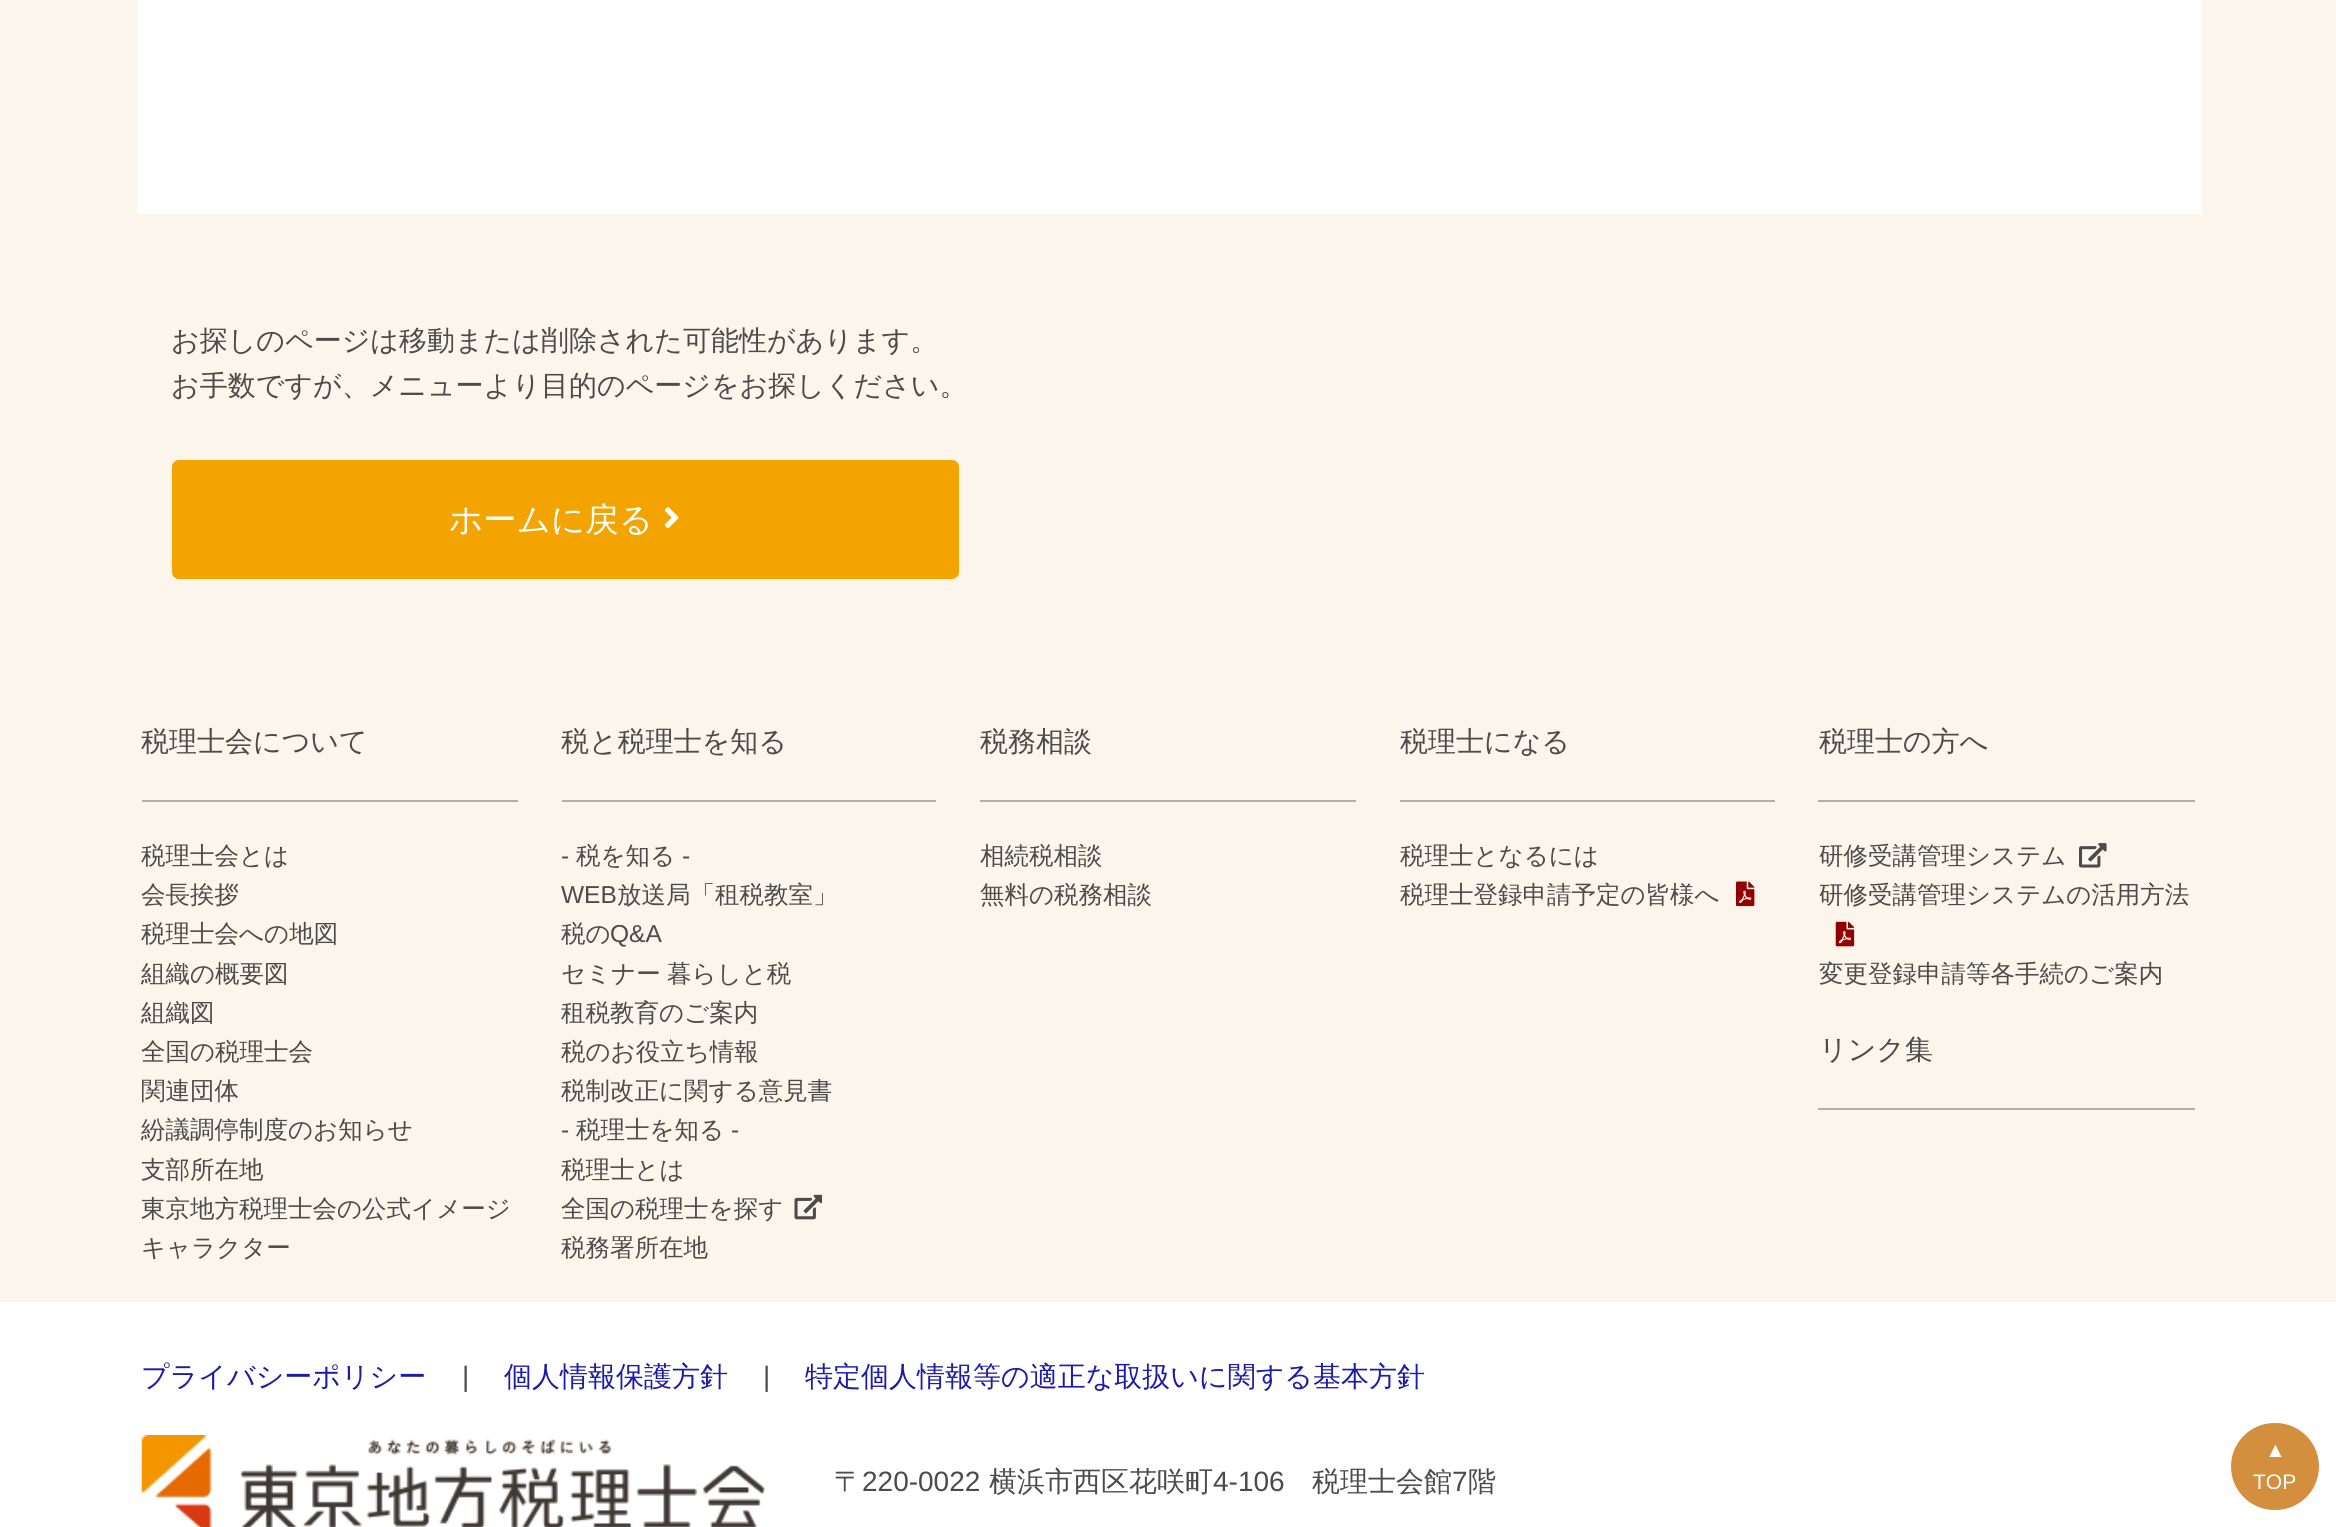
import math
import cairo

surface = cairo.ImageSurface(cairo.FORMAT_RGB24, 2336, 1527)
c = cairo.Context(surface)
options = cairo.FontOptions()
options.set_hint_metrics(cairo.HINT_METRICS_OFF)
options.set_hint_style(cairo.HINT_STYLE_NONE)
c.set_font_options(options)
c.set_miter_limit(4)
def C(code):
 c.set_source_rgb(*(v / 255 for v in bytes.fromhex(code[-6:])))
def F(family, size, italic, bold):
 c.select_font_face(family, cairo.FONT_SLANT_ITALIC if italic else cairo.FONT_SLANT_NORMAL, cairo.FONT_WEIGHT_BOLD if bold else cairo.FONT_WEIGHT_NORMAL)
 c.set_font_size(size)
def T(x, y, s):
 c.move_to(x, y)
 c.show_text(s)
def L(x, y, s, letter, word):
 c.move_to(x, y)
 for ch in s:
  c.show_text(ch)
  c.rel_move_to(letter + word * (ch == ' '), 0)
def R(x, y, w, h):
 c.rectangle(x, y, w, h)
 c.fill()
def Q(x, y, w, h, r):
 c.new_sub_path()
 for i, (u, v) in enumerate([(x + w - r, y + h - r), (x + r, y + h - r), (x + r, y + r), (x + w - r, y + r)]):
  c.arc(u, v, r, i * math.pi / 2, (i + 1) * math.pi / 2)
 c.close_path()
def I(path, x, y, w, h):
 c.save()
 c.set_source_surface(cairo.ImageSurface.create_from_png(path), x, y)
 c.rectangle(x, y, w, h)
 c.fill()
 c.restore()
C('fcf5eb')
c.paint()
C('ffffff')
R(137,0,2065,214)
F('WenQuanYi Zen Hei Medium',28,0,0)
C('4b4b4b')
T(171,350,'お探しのページは移動または削除された可能性があります。')
T(171,395,'お手数ですが、メニューより目的のページをお探しください。')
C('f4a400')
Q(172,460,787,119,7)
c.fill()
F('WenQuanYi Zen Hei Medium',33.5,0,0)
C('ffffff')
T(449,531,'ホームに戻る')
I('1.png',664,507,15,22)
C('afafaf')
R(142,800,376,2)
F('WenQuanYi Zen Hei Medium',28,0,0)
C('4b4b4b')
T(141,751,'税理士会について')
F('WenQuanYi Zen Hei Medium',24.5,0,0)
T(141,864,'税理士会とは')
T(141,903,'会長挨拶')
T(141,942,'税理士会への地図')
T(141,982,'組織の概要図')
T(141,1021,'組織図')
T(141,1060,'全国の税理士会')
T(141,1099,'関連団体')
T(141,1138,'紛議調停制度のお知らせ')
T(141,1178,'支部所在地')
T(141,1217,'東京地方税理士会の公式イメージ')
T(141,1256,'キャラクター')
C('afafaf')
R(562,800,374,2)
F('WenQuanYi Zen Hei Medium',28,0,0)
C('4b4b4b')
T(561,751,'税と税理士を知る')
F('Liberation Sans',24.5,0,0)
T(561,864,'-')
F('WenQuanYi Zen Hei Medium',24.5,0,0)
T(576,864,'税を知る')
F('Liberation Sans',24.5,0,0)
T(682,864,'-')
T(561,903,'WEB')
F('WenQuanYi Zen Hei Medium',24.5,0,0)
T(617,903,'放送局「租税教室」')
T(561,942,'税の')
F('Liberation Sans',24.5,0,0)
T(610,942,'Q&A')
F('WenQuanYi Zen Hei Medium',24.5,0,0)
L(561,982,'セミナー 暮らしと税',0,-1)
T(561,1021,'租税教育のご案内')
T(561,1060,'税のお役立ち情報')
T(561,1099,'税制改正に関する意見書')
F('Liberation Sans',24.5,0,0)
T(561,1138,'-')
F('WenQuanYi Zen Hei Medium',24.5,0,0)
T(576,1138,'税理士を知る')
F('Liberation Sans',24.5,0,0)
T(731,1138,'-')
F('WenQuanYi Zen Hei Medium',24.5,0,0)
T(561,1178,'税理士とは')
T(561,1217,'全国の税理士を探す')
I('2.png',794,1194,29,26)
T(561,1256,'税務署所在地')
C('afafaf')
R(980,800,376,2)
F('WenQuanYi Zen Hei Medium',28,0,0)
C('4b4b4b')
T(980,751,'税務相談')
F('WenQuanYi Zen Hei Medium',24.5,0,0)
T(980,864,'相続税相談')
T(980,903,'無料の税務相談')
C('afafaf')
R(1400,800,375,2)
F('WenQuanYi Zen Hei Medium',28,0,0)
C('4b4b4b')
T(1400,751,'税理士になる')
F('WenQuanYi Zen Hei Medium',24.5,0,0)
T(1400,864,'税理士となるには')
T(1400,903,'税理士登録申請予定の皆様へ')
I('3.png',1736,881,19,26)
C('afafaf')
R(1818,800,377,2)
F('WenQuanYi Zen Hei Medium',28,0,0)
C('4b4b4b')
T(1819,751,'税理士の方へ')
F('WenQuanYi Zen Hei Medium',24.5,0,0)
T(1819,864,'研修受講管理システム')
I('4.png',2079,843,28,25)
T(1819,903,'研修受講管理システムの活用方法')
I('5.png',1835,921,20,26)
T(1819,982,'変更登録申請等各手続のご案内')
C('afafaf')
R(1818,1108,377,2)
F('WenQuanYi Zen Hei Medium',28,0,0)
C('4b4b4b')
T(1819,1059,'リンク集')
C('ffffff')
R(0,1302,2336,225)
C('1c1ca8')
T(141,1386,'プライバシーポリシー')
F('Liberation Sans',28,0,0)
C('4b4b4b')
T(462,1386,'|')
F('WenQuanYi Zen Hei Medium',28,0,0)
C('1c1ca8')
T(504,1386,'個人情報保護方針')
F('Liberation Sans',28,0,0)
C('4b4b4b')
T(763,1386,'|')
F('WenQuanYi Zen Hei Medium',28,0,0)
C('1c1ca8')
T(805,1386,'特定個人情報等の適正な取扱いに関する基本方針')
I('6.png',141,1435,624,92)
C('4b4b4b')
T(834,1491,'〒')
F('Liberation Sans',28,0,0)
T(862,1491,'220-0022')
F('WenQuanYi Zen Hei Medium',28,0,0)
T(989,1491,'横浜市西区花咲町')
F('Liberation Sans',28,0,0)
T(1213,1491,'4-106')
F('WenQuanYi Zen Hei Medium',28,0,0)
T(1312,1491,'税理士会館')
F('Liberation Sans',28,0,0)
T(1452,1491,'7')
F('WenQuanYi Zen Hei Medium',28,0,0)
T(1468,1491,'階')
C('d38f3d')
Q(2231,1423,88,87,43.5)
c.fill()
F('Liberation Sans',21,0,0)
C('ffffff')
T(2265,1457,'▲')
T(2253,1489,'TOP')
surface.write_to_png('o.png')
